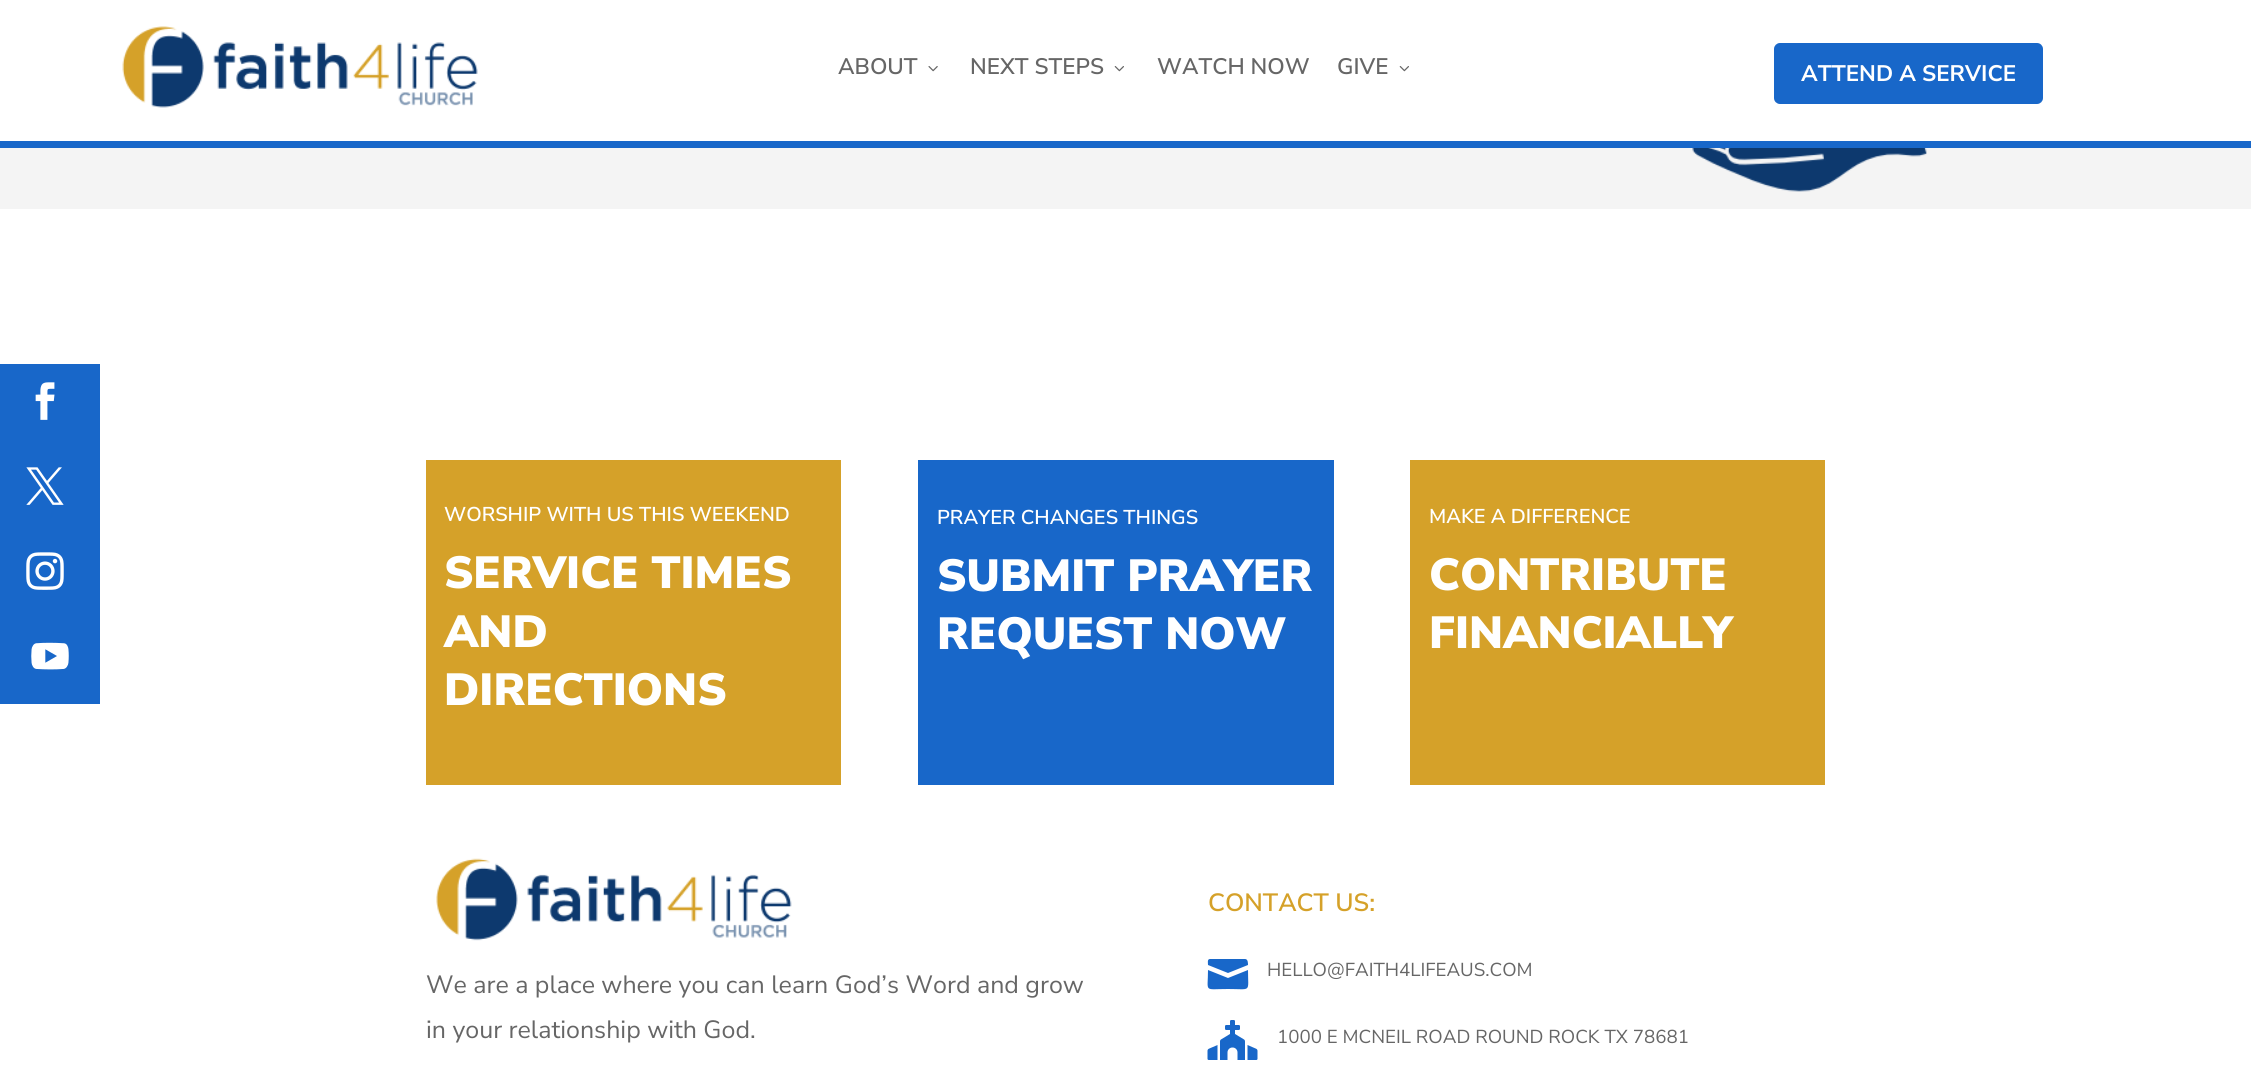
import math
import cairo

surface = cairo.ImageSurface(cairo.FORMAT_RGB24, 2251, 1066)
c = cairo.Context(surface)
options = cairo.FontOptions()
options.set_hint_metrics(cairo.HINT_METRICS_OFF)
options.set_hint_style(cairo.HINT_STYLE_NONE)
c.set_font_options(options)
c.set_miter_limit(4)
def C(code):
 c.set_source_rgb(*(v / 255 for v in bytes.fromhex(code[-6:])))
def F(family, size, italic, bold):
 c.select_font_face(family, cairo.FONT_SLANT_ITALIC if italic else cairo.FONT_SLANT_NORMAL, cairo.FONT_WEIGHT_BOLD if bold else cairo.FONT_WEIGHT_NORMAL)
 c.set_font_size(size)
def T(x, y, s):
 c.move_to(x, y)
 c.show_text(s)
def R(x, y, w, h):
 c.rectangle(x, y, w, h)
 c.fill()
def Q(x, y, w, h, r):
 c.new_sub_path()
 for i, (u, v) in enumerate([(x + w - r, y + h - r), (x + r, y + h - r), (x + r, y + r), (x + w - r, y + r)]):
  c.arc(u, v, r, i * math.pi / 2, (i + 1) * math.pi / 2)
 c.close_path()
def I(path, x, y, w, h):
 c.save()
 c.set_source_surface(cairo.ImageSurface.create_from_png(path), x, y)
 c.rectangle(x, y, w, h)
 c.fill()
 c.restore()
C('ffffff')
c.paint()
C('1867c9')
R(0,141,2251,7)
I('1.png',122,26,356,82)
F('Nunito Sans ExtraLight',22.5,0,0)
C('666666')
T(838,74,'ABOUT')
I('2.png',928,66,10,6)
T(970,74,'NEXT STEPS')
I('3.png',1114,66,10,6)
T(1157,74,'WATCH NOW')
T(1337,74,'GIVE')
I('3.png',1399,66,10,6)
C('1867c9')
Q(1776,45,265,57,4)
c.fill_preserve()
c.set_line_width(4)
c.stroke()
F('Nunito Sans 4 ExtraLight',22.5,0,0)
C('ffffff')
T(1801,81,'ATTEND A SERVICE')
C('1867c9')
R(0,364,100,340)
I('4.png',35,382,20,38)
I('5.png',26,467,38,38)
I('6.png',26,552,38,38)
I('7.png',31,642,38,28)
C('f4f4f4')
R(0,148,2251,61)
I('8.png',1692,148,235,44)
C('d5a129')
R(426,460,415,325)
F('Nunito Sans ExtraLight',20,0,0)
C('ffffff')
T(444,521,'WORSHIP WITH US THIS WEEKEND')
F('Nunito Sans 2 ExtraLight',45,0,0)
T(444,588,'SERVICE TIMES')
T(444,647,'AND')
T(444,705,'DIRECTIONS')
C('1867c9')
R(918,460,416,325)
F('Nunito Sans ExtraLight',20,0,0)
C('ffffff')
T(937,524,'PRAYER CHANGES THINGS')
F('Nunito Sans 2 ExtraLight',45,0,0)
T(937,591,'SUBMIT PRAYER')
T(937,649,'REQUEST NOW')
C('d5a129')
R(1410,460,415,325)
F('Nunito Sans ExtraLight',20,0,0)
C('ffffff')
T(1429,523,'MAKE A DIFFERENCE')
F('Nunito Sans 2 ExtraLight',45,0,0)
T(1429,590,'CONTRIBUTE')
T(1429,648,'FINANCIALLY')
I('9.png',436,858,356,83)
F('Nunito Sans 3 ExtraLight',25,0,0)
C('666666')
T(426,993,'We are a place where you can learn God’s Word and grow')
T(426,1038,'in your relationship with God.')
F('Nunito Sans ExtraLight',25,0,0)
C('d5a129')
T(1208,911,'CONTACT US:')
C('1867c9')
c.new_path()
c.move_to(1245,959)
c.line_to(1210,959)
c.curve_to(1207,959,1208,963,1208,965)
c.line_to(1228,973)
c.line_to(1248,965)
c.curve_to(1248,963,1248,959,1245,959)
c.close_path()
c.move_to(1208,970)
c.curve_to(1208,993,1203,989,1228,989)
c.curve_to(1252,989,1248,993,1248,970)
c.line_to(1228,978)
c.close_path()
c.fill()
F('Nunito Sans 3 ExtraLight',18.75,0,0)
C('666666')
T(1267,976,'HELLO@FAITH4LIFEAUS.COM')
I('10.png',1207,1020,51,40)
T(1277,1043,'1000 E MCNEIL ROAD ROUND ROCK TX 78681')
surface.write_to_png('o.png')
